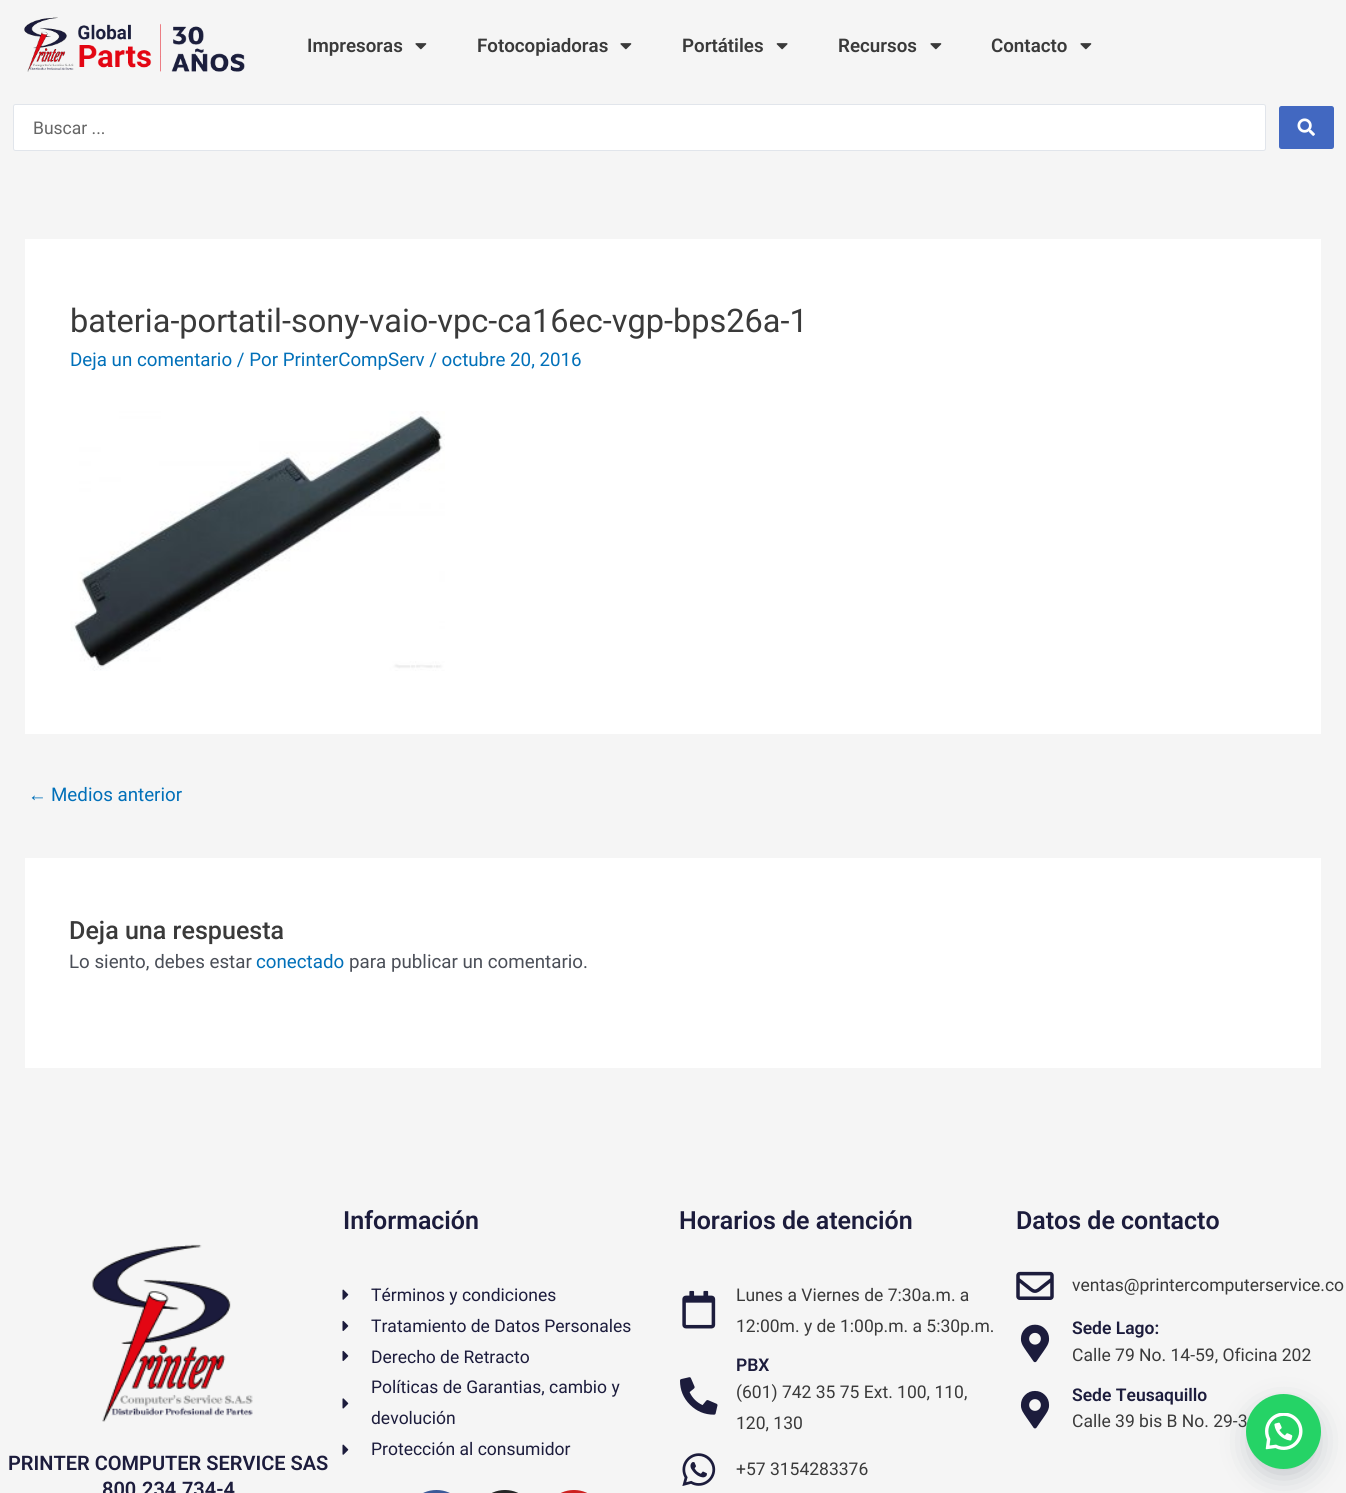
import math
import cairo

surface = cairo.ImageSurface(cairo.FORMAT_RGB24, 1346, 1493)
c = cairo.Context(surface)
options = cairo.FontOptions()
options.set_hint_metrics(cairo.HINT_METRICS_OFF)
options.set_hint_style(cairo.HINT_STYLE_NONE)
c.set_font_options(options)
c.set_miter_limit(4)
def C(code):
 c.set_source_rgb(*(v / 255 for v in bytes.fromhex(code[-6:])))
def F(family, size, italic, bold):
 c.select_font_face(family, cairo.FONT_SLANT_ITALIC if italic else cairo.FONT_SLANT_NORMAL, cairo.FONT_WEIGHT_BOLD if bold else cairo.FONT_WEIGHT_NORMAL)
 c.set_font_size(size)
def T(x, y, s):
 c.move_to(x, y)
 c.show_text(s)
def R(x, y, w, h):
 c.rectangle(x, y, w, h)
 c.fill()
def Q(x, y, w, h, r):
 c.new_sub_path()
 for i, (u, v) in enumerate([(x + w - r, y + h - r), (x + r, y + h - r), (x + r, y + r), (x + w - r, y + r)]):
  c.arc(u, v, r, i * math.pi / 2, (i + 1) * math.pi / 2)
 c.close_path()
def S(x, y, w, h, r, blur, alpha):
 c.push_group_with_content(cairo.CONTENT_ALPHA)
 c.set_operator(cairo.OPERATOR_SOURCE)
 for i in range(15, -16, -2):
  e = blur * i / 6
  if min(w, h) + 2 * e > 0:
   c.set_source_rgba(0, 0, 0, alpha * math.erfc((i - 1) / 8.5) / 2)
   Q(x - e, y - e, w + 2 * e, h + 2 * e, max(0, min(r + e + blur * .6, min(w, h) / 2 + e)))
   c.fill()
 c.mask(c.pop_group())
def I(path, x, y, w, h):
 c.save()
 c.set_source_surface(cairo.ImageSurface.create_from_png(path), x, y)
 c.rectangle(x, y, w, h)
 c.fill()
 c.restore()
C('f5f5f5')
c.paint()
I('1.png',24,17,221,55)
F('Roboto SemiBold',18.75,0,0)
C('3a3a3a')
T(307,52,'Impresoras')
I('2.png',415,43,12,7)
T(477,52,'Fotocopiadoras')
I('2.png',620,43,12,7)
T(682,52,'Portátiles')
I('3.png',776,43,12,7)
T(838,52,'Recursos')
I('2.png',930,43,12,7)
T(991,52,'Contacto')
I('2.png',1080,43,12,7)
C('ffffff')
Q(13.5,104.5,1252,46,2)
c.fill_preserve()
C('e1e5eb')
c.set_line_width(1)
c.stroke()
F('Roboto',17.5,0,0)
C('666666')
T(33,134,'Buscar ...')
C('4268c1')
Q(1279,106,55,43,2.5)
c.fill()
I('4.png',1297,118,18,18)
C('ffffff')
R(25,239,1296,495)
F('Roboto',32.5,0,0)
C('3a3a3a')
T(70,332,'bateria-portatil-sony-vaio-vpc-ca16ec-vgp-bps26a-1')
F('Roboto',18.75,0,0)
C('0170b9')
T(70,366,'Deja un comentario / Por PrinterCompServ / octubre 20, 2016')
I('5.png',70,411,375,260)
F('Liberation Sans',18.75,0,0)
T(28,801,'←')
F('Roboto',18.75,0,0)
T(51,801,'Medios anterior')
C('ffffff')
R(25,858,1296,210)
F('Roboto Medium',25.1,0,0)
C('3a3a3a')
T(69,939,'Deja una respuesta')
F('Roboto',18.75,0,0)
C('4b4f58')
T(69,968,'Lo siento, debes estar')
C('0170b9')
T(256,968,'conectado')
C('4b4f58')
T(349,968,'para publicar un comentario.')
F('Roboto SemiBold',25,0,0)
C('1c1c3c')
T(343,1229,'Información')
I('6.png',342,1289,7,11)
F('Roboto',17.5,0,0)
T(371,1301,'Términos y condiciones')
I('7.png',342,1320,7,11)
T(371,1332,'Tratamiento de Datos Personales')
I('7.png',342,1350,7,11)
T(371,1363,'Derecho de Retracto')
I('8.png',342,1398,7,11)
T(371,1393,'Políticas de Garantias, cambio y')
T(371,1424,'devolución')
I('6.png',342,1444,7,11)
T(371,1455,'Protección al consumidor')
C('3b5998')
Q(405,1490,63,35,31.5)
c.fill()
C('262626')
Q(474,1490,62,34,31)
c.fill()
C('cd201f')
Q(543,1490,62,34,31)
c.fill()
F('Roboto SemiBold',25,0,0)
C('1c1c3c')
T(679,1229,'Horarios de atención')
I('9.png',682,1290,34,39)
F('Roboto',17.5,0,0)
C('3a3a3a')
T(736,1301,'Lunes a Viernes de 7:30a.m. a')
T(736,1332,'12:00m. y de 1:00p.m. a 5:30p.m.')
I('10.png',680,1377,38,38)
F('Roboto SemiBold',17.5,0,0)
C('1c1c3c')
T(736,1371,'PBX')
F('Roboto',17.5,0,0)
C('3a3a3a')
T(736,1398,'(601) 742 35 75 Ext. 100, 110,')
T(736,1429,'120, 130')
I('11.png',682,1453,34,33)
T(736,1475,'+57 3154283376')
F('Roboto SemiBold',25,0,0)
C('1c1c3c')
T(1016,1229,'Datos de contacto')
I('12.png',1016,1271,38,29)
F('Roboto',17.5,0,0)
C('3a3a3a')
T(1072,1291,'ventas@printercomputerservice.co')
I('13.png',1020,1324,30,39)
F('Roboto SemiBold',17.5,0,0)
C('1c1c3c')
T(1072,1334,'Sede Lago:')
F('Roboto',17.5,0,0)
C('3a3a3a')
T(1072,1361,'Calle 79 No. 14-59, Oficina 202')
I('14.png',1020,1390,30,39)
F('Roboto SemiBold',17.5,0,0)
C('1c1c3c')
T(1072,1401,'Sede Teusaquillo')
F('Roboto',17.5,0,0)
C('3a3a3a')
T(1072,1427,'Calle 39 bis B No. 29-3')
I('15.png',92,1244,161,178)
F('Roboto SemiBold',20,0,0)
C('1c1c3c')
T(8,1470,'PRINTER COMPUTER SERVICE SAS')
T(102,1496,'800.234.734-4')
C('2d3e4f')
S(1253,1410,62,63,31,15.5,.3)
C('25d366')
c.arc(1283.5,1431.5,37.5,0,2 * math.pi)
c.fill()
I('16.png',1265,1413,38,37)
surface.write_to_png('o.png')
